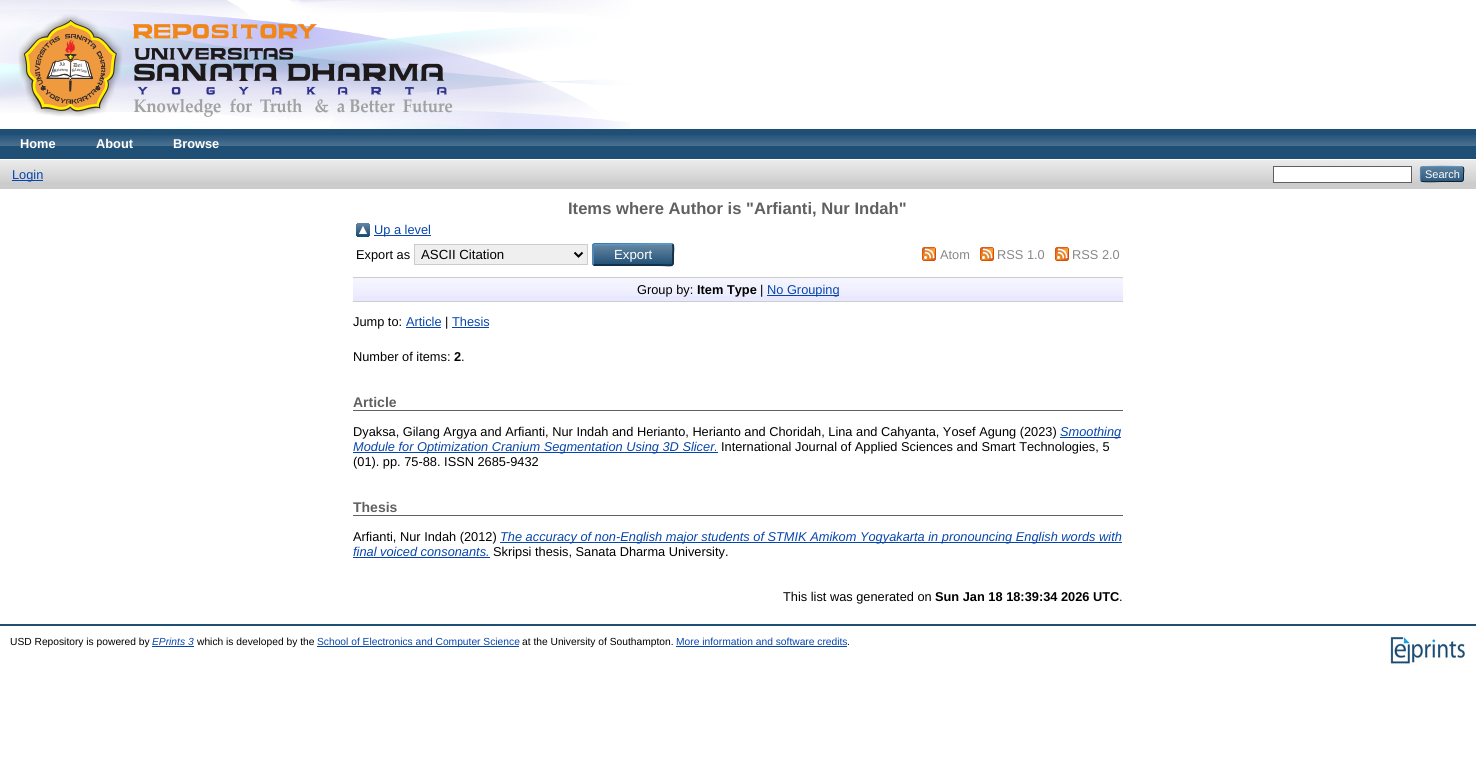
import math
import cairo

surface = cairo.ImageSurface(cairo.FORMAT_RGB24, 1476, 757)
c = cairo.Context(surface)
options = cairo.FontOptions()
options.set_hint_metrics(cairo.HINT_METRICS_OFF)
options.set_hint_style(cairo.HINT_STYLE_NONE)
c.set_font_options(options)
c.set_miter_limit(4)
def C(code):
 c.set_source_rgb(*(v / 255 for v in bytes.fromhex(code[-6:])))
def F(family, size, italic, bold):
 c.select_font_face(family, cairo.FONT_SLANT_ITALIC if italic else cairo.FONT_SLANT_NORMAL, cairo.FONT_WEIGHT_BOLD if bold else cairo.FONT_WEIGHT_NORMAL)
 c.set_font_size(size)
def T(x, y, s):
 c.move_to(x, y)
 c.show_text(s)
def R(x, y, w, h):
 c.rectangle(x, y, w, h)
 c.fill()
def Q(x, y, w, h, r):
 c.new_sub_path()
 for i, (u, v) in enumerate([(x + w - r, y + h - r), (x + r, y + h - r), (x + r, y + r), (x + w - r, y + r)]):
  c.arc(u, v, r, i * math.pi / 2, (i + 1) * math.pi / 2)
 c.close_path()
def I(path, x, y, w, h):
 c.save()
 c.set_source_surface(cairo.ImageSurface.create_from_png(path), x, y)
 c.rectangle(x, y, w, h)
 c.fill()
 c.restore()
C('ffffff')
c.paint()
I('1.png',0,0,630,129)
I('2.png',17,14,436,103)
C('204f76')
R(0,129,1476,30)
I('3.png',0,135,1476,11)
F('Liberation Sans',12.8,0,1)
C('ffffff')
T(20,148,'Home')
T(96,148,'About')
T(173,148,'Browse')
C('cccccc')
R(0,160,1476,29)
I('4.png',0,160,1476,22)
C('0645ad')
R(12,180,31,1)
F('Liberation Sans',12.8,0,0)
T(12,179,'Login')
C('ffffff')
c.rectangle(1273.5,166.5,138,16)
c.fill_preserve()
C('606060')
c.set_line_width(1)
c.stroke()
C('1f4f76')
Q(1420,166,44,16,3)
c.fill()
I('5.png',1420,166,44,16)
c.new_path()
c.move_to(1421,167)
c.curve_to(1422.5,166,1461.5,166,1463,167)
C('5b97c7')
c.stroke()
c.new_path()
c.move_to(1463,167)
c.curve_to(1464.5,169,1463.5,172,1463.5,174)
c.curve_to(1463.5,182.5,1464,181.5,1454.5,181.5)
c.line_to(1442,181.5)
c.curve_to(1439,181.5,1423,182.5,1421,181)
C('0d2131')
c.stroke()
c.new_path()
c.move_to(1421,181)
c.curve_to(1420,179.5,1420.5,175.5,1420.5,174)
c.curve_to(1420.5,172.5,1420,168.5,1421,167)
C('5287b3')
c.stroke()
F('Liberation Sans',11,0,0)
C('ffffff')
T(1425,178,'Search')
F('Liberation Sans',16.6,0,1)
C('606060')
T(568,214,'Items where Author is "Arfianti, Nur Indah"')
I('6.png',356,223,14,14)
C('0645ad')
R(374,235,57,1)
F('Liberation Sans',12.8,0,0)
T(374,234,'Up a level')
C('000000')
T(356,259,'Export as')
C('efefef')
c.rectangle(414.5,244.5,173,20)
c.fill_preserve()
C('cccccc')
c.stroke()
c.new_path()
c.move_to(574.5,252.5)
c.line_to(578.5,256.5)
c.line_to(582.5,252.5)
C('000000')
c.set_line_width(2)
c.stroke()
F('Liberation Sans',13.25,0,0)
T(421,259,'ASCII Citation')
C('1f4f76')
Q(592,243,82,23,3)
c.fill()
I('7.png',592,245,82,19)
c.new_path()
c.move_to(593.5,244.5)
c.line_to(658.5,244)
c.line_to(671,244)
c.line_to(672.5,244.5)
C('5b97c7')
c.stroke()
c.new_path()
c.move_to(672.5,244.5)
c.curve_to(674,246,673,252.5,673,254.5)
c.curve_to(673,268.5,674.5,265,658.5,265)
c.line_to(595,265)
c.line_to(593.5,264.5)
C('13324a')
c.stroke()
c.new_path()
c.move_to(593.5,264.5)
c.curve_to(593,264,593,263.5,593,263)
c.line_to(593,246)
c.curve_to(593,245.5,593,245,593.5,244.5)
C('5287b3')
c.stroke()
C('ffffff')
T(614,259,'Export')
I('8.png',922,247,14,14)
F('Liberation Sans',12.8,0,0)
C('888888')
T(940,259,'Atom')
I('8.png',980,247,14,14)
T(997,259,'RSS 1.0')
I('8.png',1055,247,14,14)
T(1072,259,'RSS 2.0')
C('e8e8ff')
R(353,278,770,23)
I('9.png',353,278,770,18)
C('cccccc')
R(353,277,770,1)
R(353,301,770,1)
C('000000')
T(637,294,'Group by:')
F('Liberation Sans',12.8,0,1)
T(697,294,'Item Type')
F('Liberation Sans',12.8,0,0)
T(760,294,'|')
C('0645ad')
R(767,295,72,1)
T(767,294,'No Grouping')
C('000000')
T(353,326,'Jump to:')
C('0645ad')
T(406,326,'Article')
R(406,327,35,1)
C('000000')
T(445,326,'|')
C('0645ad')
T(452,326,'Thesis')
R(452,327,37,1)
C('000000')
T(353,361,'Number of items:')
F('Liberation Sans',12.8,0,1)
T(454,361,'2')
F('Liberation Sans',12.8,0,0)
T(461,361,'.')
C('606060')
R(353,410,770,1)
F('Liberation Sans',14,0,1)
T(353,407,'Article')
F('Liberation Sans',12.8,0,0)
C('000000')
T(353,436,'Dyaksa, Gilang Argya and Arfianti, Nur Indah and Herianto, Herianto and Choridah, Lina and Cahyanta, Yosef Agung (2023)')
C('0645ad')
R(1060,437,61,1)
F('Liberation Sans',12.8,1,0)
T(1060,436,'Smoothing')
R(353,452,365,1)
T(353,451,'Module for Optimization Cranium Segmentation Using 3D Slicer.')
F('Liberation Sans',12.8,0,0)
C('000000')
T(721,451,'International Journal of Applied Sciences and Smart Technologies, 5')
T(353,466,'(01). pp. 75-88. ISSN 2685-9432')
C('606060')
R(353,515,770,1)
F('Liberation Sans',14,0,1)
T(353,512,'Thesis')
F('Liberation Sans',12.8,0,0)
C('000000')
T(353,541,'Arfianti, Nur Indah (2012)')
C('0645ad')
R(500,542,622,1)
F('Liberation Sans',12.8,1,0)
T(500,541,'The accuracy of non-English major students of STMIK Amikom Yogyakarta in pronouncing English words with')
T(353,556,'final voiced consonants.')
R(353,557,137,1)
F('Liberation Sans',12.8,0,0)
C('000000')
T(493,556,'Skripsi thesis, Sanata Dharma University.')
T(783,601,'This list was generated on')
F('Liberation Sans',12.8,0,1)
T(935,601,'Sun Jan 18 18:39:34 2026 UTC')
F('Liberation Sans',12.8,0,0)
T(1119,601,'.')
C('204f76')
R(0,624,1476,2)
F('Liberation Sans',10.25,0,0)
C('000000')
T(10,645,'USD Repository is powered by')
F('Liberation Sans',10.25,1,0)
C('0645ad')
T(152,645,'EPrints 3')
R(152,646,42,1)
F('Liberation Sans',10.25,0,0)
C('000000')
T(197,645,'which is developed by the')
C('0645ad')
R(317,646,202,1)
T(317,645,'School of Electronics and Computer Science')
C('000000')
T(522,645,'at the University of Southampton.')
C('0645ad')
T(676,645,'More information and software credits')
R(676,646,171,1)
C('000000')
T(847,645,'.')
I('10.png',1389,637,76,28)
surface.write_to_png('o.png')
